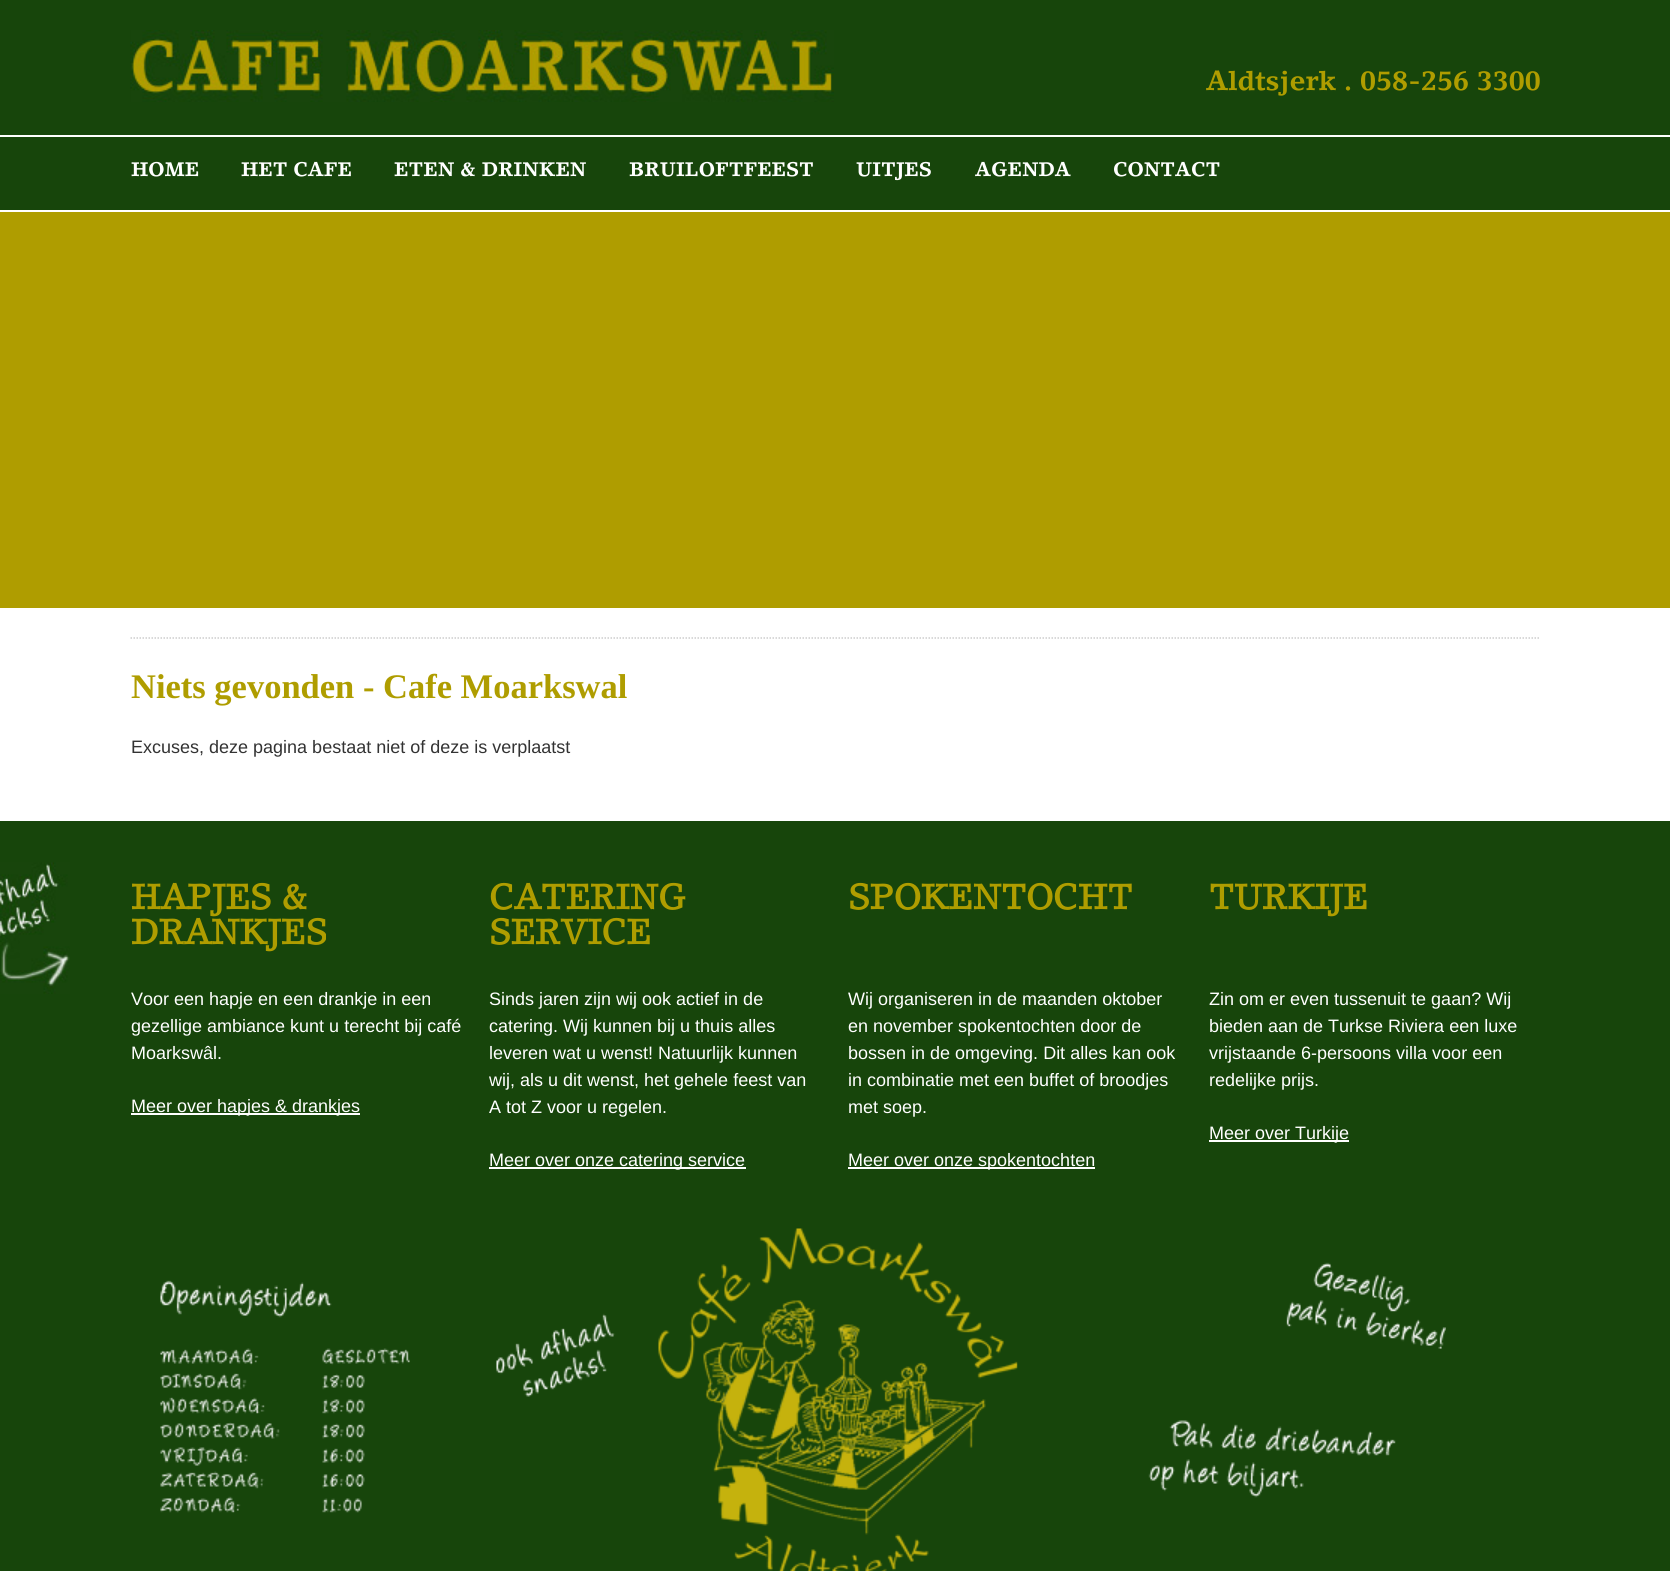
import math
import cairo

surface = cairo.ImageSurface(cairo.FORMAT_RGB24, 1670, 1571)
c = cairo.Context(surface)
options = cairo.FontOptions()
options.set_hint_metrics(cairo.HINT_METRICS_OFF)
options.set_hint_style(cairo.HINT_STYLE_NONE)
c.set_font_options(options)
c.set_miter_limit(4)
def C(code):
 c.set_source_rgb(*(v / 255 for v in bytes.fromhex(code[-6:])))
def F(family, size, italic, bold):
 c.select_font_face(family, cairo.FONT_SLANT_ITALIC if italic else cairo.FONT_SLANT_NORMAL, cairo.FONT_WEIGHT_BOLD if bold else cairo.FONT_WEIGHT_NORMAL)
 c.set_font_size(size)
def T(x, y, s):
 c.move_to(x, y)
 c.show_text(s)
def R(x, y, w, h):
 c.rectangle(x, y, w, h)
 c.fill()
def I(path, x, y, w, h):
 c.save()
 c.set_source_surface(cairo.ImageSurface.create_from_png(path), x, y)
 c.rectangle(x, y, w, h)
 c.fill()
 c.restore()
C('ffffff')
c.paint()
C('17450b')
R(0,0,1670,210)
I('1.png',130,30,704,72)
F('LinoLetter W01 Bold',27,0,1)
C('af9d00')
T(1206,90,'Aldtsjerk . 058-256 3300')
C('ffffff')
R(0,135,1670,2)
F('LinoLetter W01 Bold',19.5,0,1)
T(131,176,'HOME')
T(241,176,'HET CAFE')
T(394,176,'ETEN & DRINKEN')
T(629,176,'BRUILOFTFEEST')
T(856,176,'UITJES')
T(975,176,'AGENDA')
T(1113,176,'CONTACT')
C('af9d00')
R(0,212,1670,396)
c.new_path()
c.move_to(130.5,638)
c.line_to(1540.5,638)
C('cccccc')
c.set_line_width(1.5)
c.set_dash([1.5,1.5])
c.stroke()
F('Liberation Serif',34.5,0,1)
C('af9d00')
T(131,698,'Niets gevonden - Cafe Moarkswal')
F('Liberation Sans',18,0,0)
C('333333')
T(131,753,'Excuses, deze pagina bestaat niet of deze is verplaatst')
C('17450b')
R(0,821,1670,750)
I('2.png',0,862,70,132)
F('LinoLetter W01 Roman',34.5,0,1)
C('af9d00')
T(131,909,'HAPJES &')
T(131,944,'DRANKJES')
F('Liberation Sans',18,0,0)
C('ffffff')
T(131,1005,'Voor een hapje en een drankje in een')
T(131,1032,'gezellige ambiance kunt u terecht bij café')
T(131,1059,'Moarkswâl.')
R(131,1113,229,2)
T(131,1112,'Meer over hapjes & drankjes')
F('LinoLetter W01 Roman',34.5,0,1)
C('af9d00')
T(489,909,'CATERING')
T(489,944,'SERVICE')
F('Liberation Sans',18,0,0)
C('ffffff')
T(489,1005,'Sinds jaren zijn wij ook actief in de')
T(489,1032,'catering. Wij kunnen bij u thuis alles')
T(489,1059,'leveren wat u wenst! Natuurlijk kunnen')
T(489,1086,'wij, als u dit wenst, het gehele feest van')
T(489,1113,'A tot Z voor u regelen.')
R(489,1167,257,2)
T(489,1166,'Meer over onze catering service')
F('LinoLetter W01 Roman',34.5,0,1)
C('af9d00')
T(848,909,'SPOKENTOCHT')
F('Liberation Sans',18,0,0)
C('ffffff')
T(848,1005,'Wij organiseren in de maanden oktober')
T(848,1032,'en november spokentochten door de')
T(848,1059,'bossen in de omgeving. Dit alles kan ook')
T(848,1086,'in combinatie met een buffet of broodjes')
T(848,1113,'met soep.')
R(848,1167,247,2)
T(848,1166,'Meer over onze spokentochten')
F('LinoLetter W01 Roman',34.5,0,1)
C('af9d00')
T(1209,909,'TURKIJE')
F('Liberation Sans',18,0,0)
C('ffffff')
T(1209,1005,'Zin om er even tussenuit te gaan? Wij')
T(1209,1032,'bieden aan de Turkse Riviera een luxe')
T(1209,1059,'vrijstaande 6-persoons villa voor een')
T(1209,1086,'redelijke prijs.')
R(1209,1140,140,2)
T(1209,1139,'Meer over Turkije')
I('3.png',160,1228,1286,343)
surface.write_to_png('o.png')
